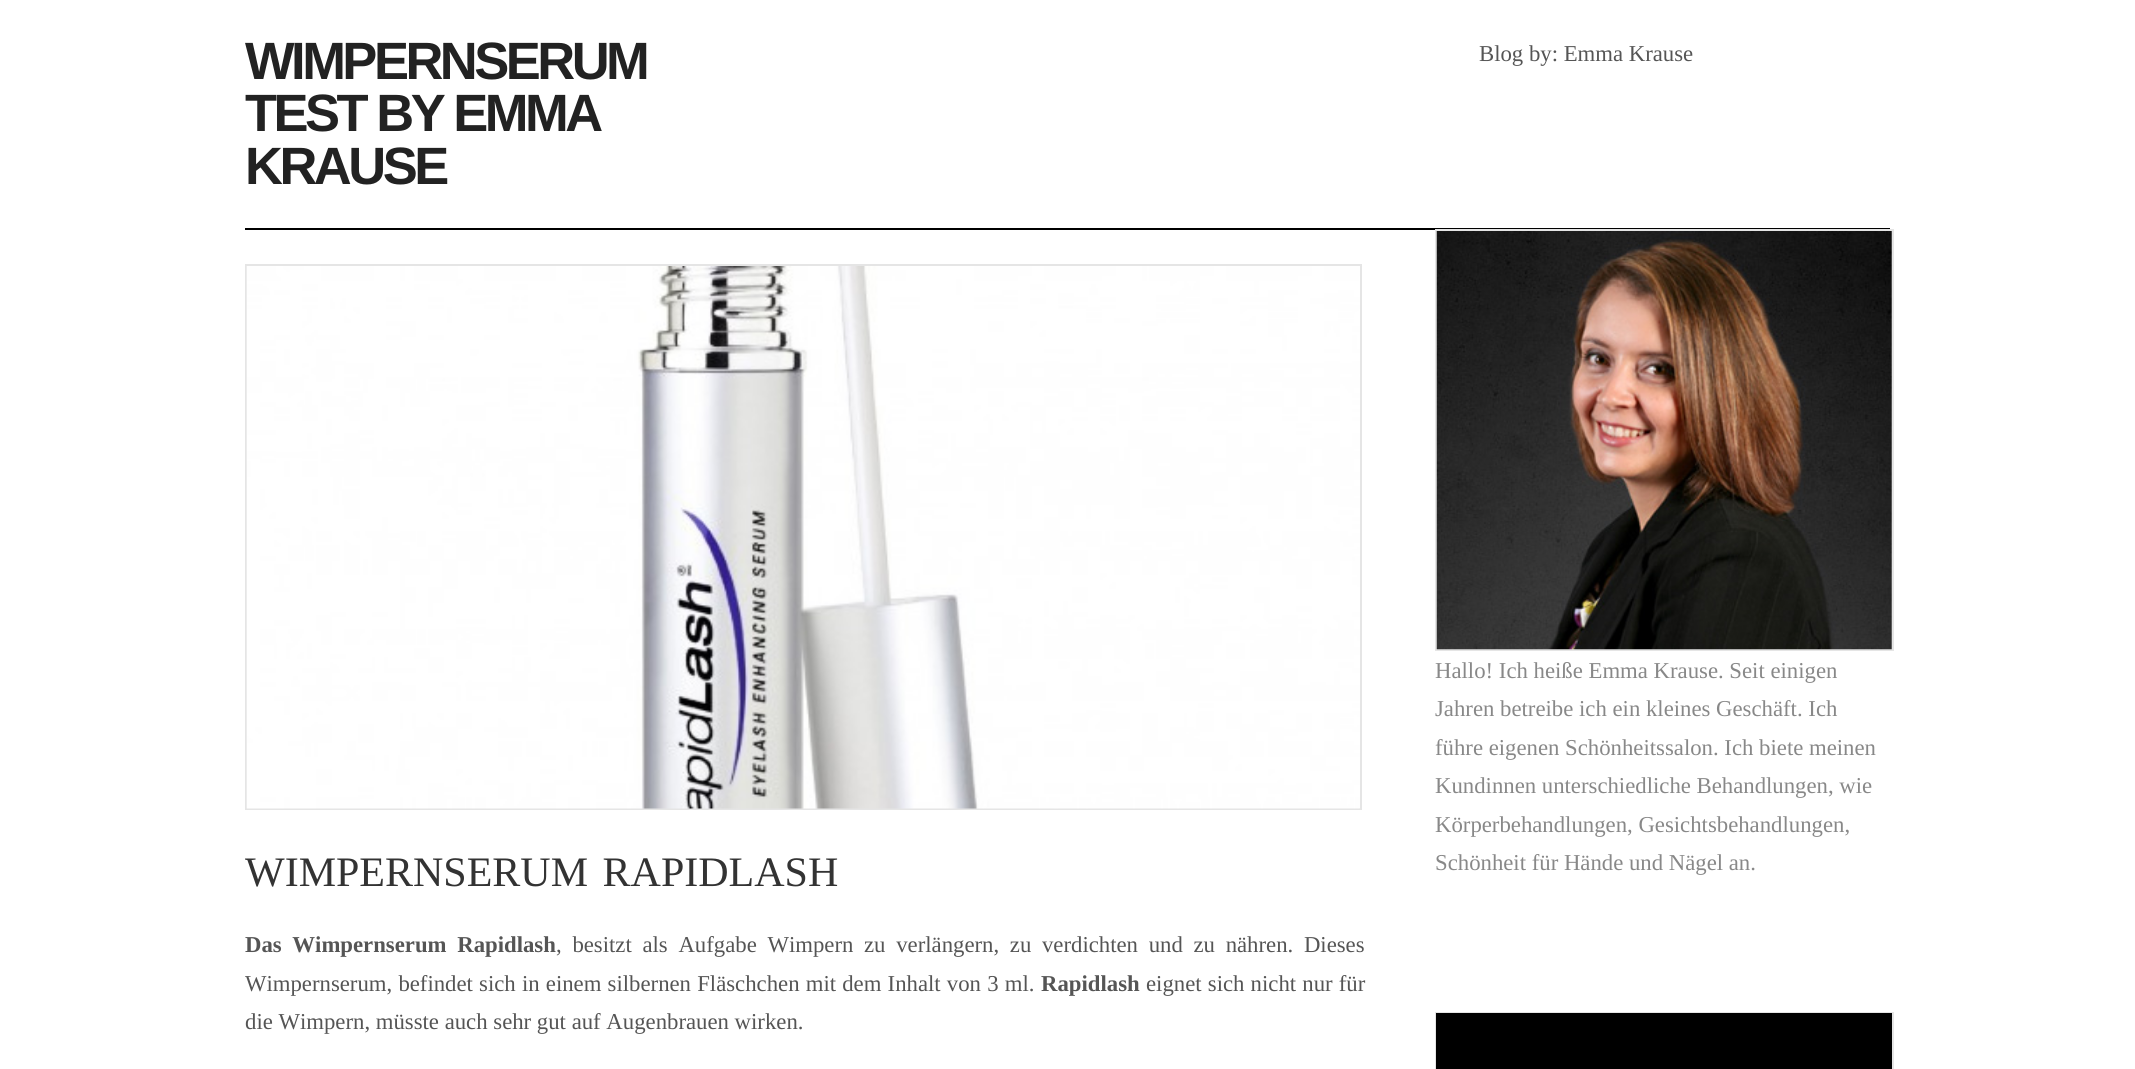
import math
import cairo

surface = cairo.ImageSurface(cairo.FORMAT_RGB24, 2135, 1069)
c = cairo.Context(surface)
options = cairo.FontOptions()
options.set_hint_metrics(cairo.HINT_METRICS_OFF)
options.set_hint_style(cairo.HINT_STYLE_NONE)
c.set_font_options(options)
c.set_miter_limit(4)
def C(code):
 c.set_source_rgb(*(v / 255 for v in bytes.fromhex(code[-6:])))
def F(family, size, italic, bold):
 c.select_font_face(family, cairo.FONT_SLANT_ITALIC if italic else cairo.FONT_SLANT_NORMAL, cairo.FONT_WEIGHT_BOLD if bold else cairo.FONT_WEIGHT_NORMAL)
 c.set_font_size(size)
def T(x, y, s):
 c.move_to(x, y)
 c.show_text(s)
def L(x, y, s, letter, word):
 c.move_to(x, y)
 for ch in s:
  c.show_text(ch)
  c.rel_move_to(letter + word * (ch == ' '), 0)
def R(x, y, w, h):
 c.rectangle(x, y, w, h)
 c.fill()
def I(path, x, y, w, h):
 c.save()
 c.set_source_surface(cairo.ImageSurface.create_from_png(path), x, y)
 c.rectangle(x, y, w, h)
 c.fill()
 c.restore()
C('ffffff')
c.paint()
F('Liberation Sans',52.5,0,1)
C('222222')
L(245,79,'WIMPERNSERUM',-3.5,0)
L(245,131,'TEST BY EMMA',-3.5,0)
L(245,184,'KRAUSE',-3.5,0)
F('Liberation Serif',22.75,0,0)
C('555555')
T(1479,61,'Blog by: Emma Krause')
C('000000')
R(245,228,1645,2)
c.rectangle(1436,230,457,420)
C('e5e5e5')
c.stroke()
I('1.png',1436,231,456,419)
C('888888')
T(1435,678,'Hallo! Ich heiße Emma Krause. Seit einigen')
T(1435,716,'Jahren betreibe ich ein kleines Geschäft. Ich')
T(1435,755,'führe eigenen Schönheitssalon. Ich biete meinen')
T(1435,793,'Kundinnen unterschiedliche Behandlungen, wie')
T(1435,832,'Körperbehandlungen, Gesichtsbehandlungen,')
T(1435,870,'Schönheit für Hände und Nägel an.')
c.rectangle(1436,1013,457,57)
C('e5e5e5')
c.stroke()
C('000000')
R(1436,1013,456,56)
c.rectangle(246,265,1115,544)
C('e5e5e5')
c.stroke()
I('2.png',246,266,1114,543)
F('Liberation Serif',42,0,0)
C('333333')
L(245,886,'WIMPERNSERUM RAPIDLASH',0,4)
F('Liberation Serif',22.75,0,1)
C('555555')
L(245,952,'Das Wimpernserum Rapidlash',0,5)
F('Liberation Serif',22.75,0,0)
L(556,952,', besitzt als Aufgabe Wimpern zu verlängern, zu verdichten und zu nähren. Dieses',0,5)
L(245,991,'Wimpernserum, befindet sich in einem silbernen Fläschchen mit dem Inhalt von 3 ml.',0,.5)
F('Liberation Serif',22.75,0,1)
T(1041,991,'Rapidlash')
F('Liberation Serif',22.75,0,0)
L(1146,991,'eignet sich nicht nur für',0,.5)
T(245,1029,'die Wimpern, müsste auch sehr gut auf Augenbrauen wirken.')
surface.write_to_png('o.png')
